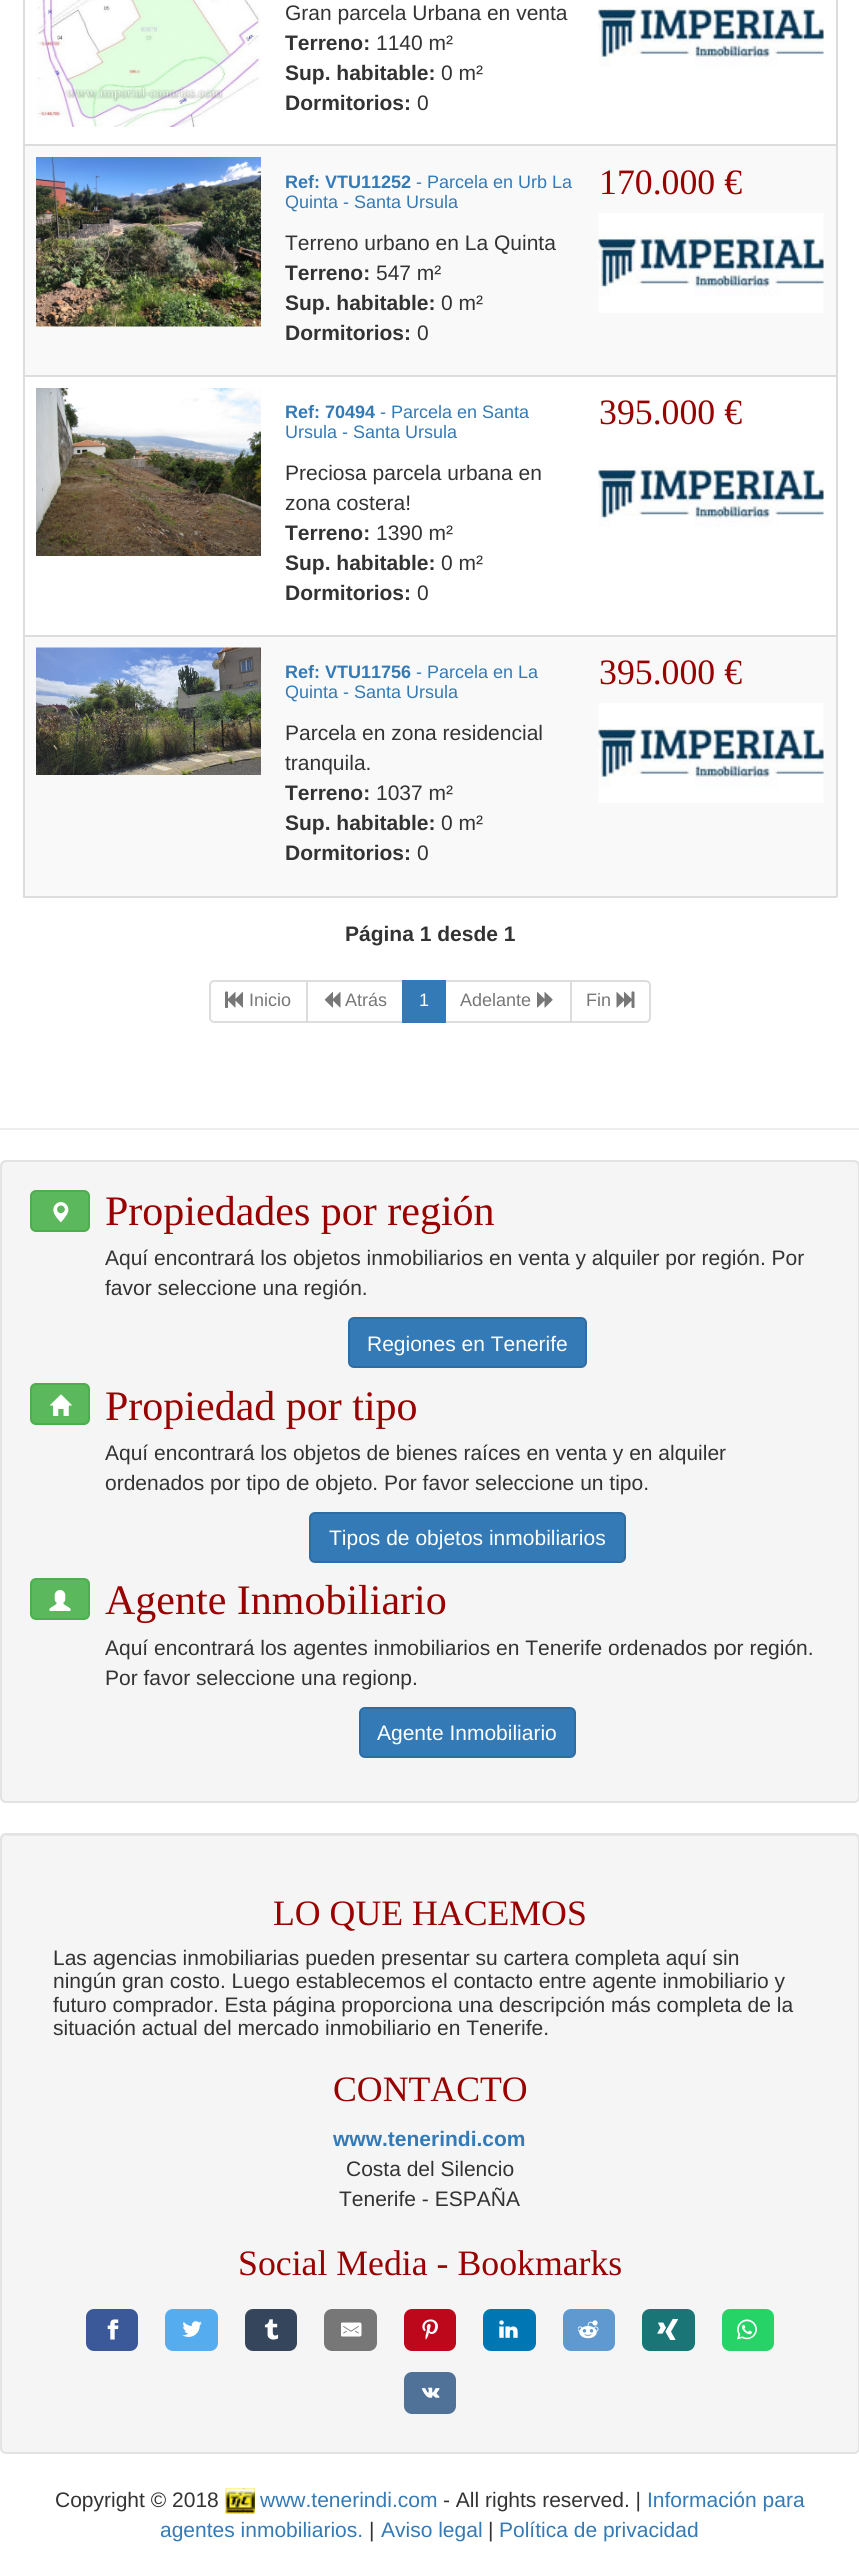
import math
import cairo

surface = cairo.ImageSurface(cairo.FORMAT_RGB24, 859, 2558)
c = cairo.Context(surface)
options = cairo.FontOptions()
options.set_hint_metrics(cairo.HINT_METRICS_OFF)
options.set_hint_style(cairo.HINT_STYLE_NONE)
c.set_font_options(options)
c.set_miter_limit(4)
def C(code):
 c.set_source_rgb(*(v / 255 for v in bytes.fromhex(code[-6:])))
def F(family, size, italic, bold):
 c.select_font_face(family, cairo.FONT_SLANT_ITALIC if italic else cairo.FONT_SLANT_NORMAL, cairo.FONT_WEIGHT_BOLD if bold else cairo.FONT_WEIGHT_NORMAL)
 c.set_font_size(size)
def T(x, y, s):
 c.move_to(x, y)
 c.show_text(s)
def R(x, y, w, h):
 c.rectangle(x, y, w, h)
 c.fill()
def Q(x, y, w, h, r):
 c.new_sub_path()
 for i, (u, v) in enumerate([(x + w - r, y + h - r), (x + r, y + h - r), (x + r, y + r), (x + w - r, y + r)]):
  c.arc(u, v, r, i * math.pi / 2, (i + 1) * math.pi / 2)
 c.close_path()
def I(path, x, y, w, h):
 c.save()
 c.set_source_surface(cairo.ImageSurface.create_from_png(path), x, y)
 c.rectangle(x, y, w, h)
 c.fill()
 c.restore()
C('ffffff')
c.paint()
C('dddddd')
R(836,0,2,897)
R(23,896,814,2)
R(23,0,2,897)
I('1.png',36,0,225,127)
F('Liberation Sans',21,0,0)
C('333333')
T(285,20,'Gran parcela Urbana en venta')
F('Liberation Sans',21,0,1)
T(285,50,'Terreno:')
F('Liberation Sans',21,0,0)
T(376,50,'1140 m²')
F('Liberation Sans',21,0,1)
T(285,80,'Sup. habitable:')
F('Liberation Sans',21,0,0)
T(441,80,'0 m²')
F('Liberation Sans',21,0,1)
T(285,110,'Dormitorios:')
F('Liberation Sans',21,0,0)
T(417,110,'0')
I('2.png',598,7,226,60)
C('f9f9f9')
R(25,146,811,229)
I('3.png',36,157,225,170)
F('Liberation Sans',18,0,1)
C('337ab7')
T(285,188,'Ref: VTU11252')
F('Liberation Sans',18,0,0)
T(416,188,'- Parcela en Urb La')
T(285,208,'Quinta - Santa Ursula')
F('Liberation Sans',21,0,0)
C('333333')
T(285,250,'Terreno urbano en La Quinta')
F('Liberation Sans',21,0,1)
T(285,280,'Terreno:')
F('Liberation Sans',21,0,0)
T(376,280,'547 m²')
F('Liberation Sans',21,0,1)
T(285,310,'Sup. habitable:')
F('Liberation Sans',21,0,0)
T(441,310,'0 m²')
F('Liberation Sans',21,0,1)
T(285,340,'Dormitorios:')
F('Liberation Sans',21,0,0)
T(417,340,'0')
C('dddddd')
R(23,144,814,2)
F('Liberation Serif',35.75,0,0)
C('990000')
T(599,194,'170.000 €')
I('4.png',598,213,226,100)
I('5.png',36,388,225,168)
F('Liberation Sans',18,0,1)
C('337ab7')
T(285,418,'Ref: 70494')
F('Liberation Sans',18,0,0)
T(380,418,'- Parcela en Santa')
T(285,438,'Ursula - Santa Ursula')
F('Liberation Sans',21,0,0)
C('333333')
T(285,480,'Preciosa parcela urbana en')
T(285,510,'zona costera!')
F('Liberation Sans',21,0,1)
T(285,540,'Terreno:')
F('Liberation Sans',21,0,0)
T(376,540,'1390 m²')
F('Liberation Sans',21,0,1)
T(285,570,'Sup. habitable:')
F('Liberation Sans',21,0,0)
T(441,570,'0 m²')
F('Liberation Sans',21,0,1)
T(285,600,'Dormitorios:')
F('Liberation Sans',21,0,0)
T(417,600,'0')
C('dddddd')
R(23,375,814,2)
F('Liberation Serif',35.75,0,0)
C('990000')
T(599,424,'395.000 €')
I('6.png',598,467,226,60)
C('f9f9f9')
R(25,637,811,259)
I('7.png',36,647,225,128)
F('Liberation Sans',18,0,1)
C('337ab7')
T(285,678,'Ref: VTU11756')
F('Liberation Sans',18,0,0)
T(416,678,'- Parcela en La')
T(285,698,'Quinta - Santa Ursula')
F('Liberation Sans',21,0,0)
C('333333')
T(285,740,'Parcela en zona residencial')
T(285,770,'tranquila.')
F('Liberation Sans',21,0,1)
T(285,800,'Terreno:')
F('Liberation Sans',21,0,0)
T(376,800,'1037 m²')
F('Liberation Sans',21,0,1)
T(285,830,'Sup. habitable:')
F('Liberation Sans',21,0,0)
T(441,830,'0 m²')
F('Liberation Sans',21,0,1)
T(285,860,'Dormitorios:')
F('Liberation Sans',21,0,0)
T(417,860,'0')
C('dddddd')
R(23,635,814,2)
F('Liberation Serif',35.75,0,0)
C('990000')
T(599,684,'395.000 €')
I('8.png',598,703,226,100)
F('Liberation Sans',21,0,1)
C('333333')
T(345,941,'Página 1 desde 1')
c.new_path()
c.move_to(214,981)
c.line_to(307,981)
c.line_to(307,1022)
c.line_to(214,1022)
c.curve_to(212,1022,210,1020,210,1018)
c.line_to(210,985)
c.curve_to(210,983,212,981,214,981)
c.close_path()
C('dddddd')
c.stroke()
I('9.png',225,991,18,17)
F('Liberation Sans',18,0,0)
C('777777')
T(249,1006,'Inicio')
c.rectangle(307,981,96,41)
C('dddddd')
c.stroke()
I('10.png',324,992,17,16)
C('777777')
T(345,1006,'Atrás')
c.rectangle(445,981,126,41)
C('dddddd')
c.stroke()
C('337ab7')
R(402,980,44,43)
C('ffffff')
T(419,1006,'1')
C('777777')
T(460,1006,'Adelante')
I('11.png',537,992,16,16)
C('ffffff')
c.new_path()
c.move_to(571,981)
c.line_to(646,981)
c.curve_to(648,981,650,983,650,985)
c.line_to(650,1018)
c.curve_to(650,1020,648,1022,646,1022)
c.line_to(571,1022)
c.close_path()
c.fill_preserve()
C('dddddd')
c.stroke()
C('777777')
T(586,1006,'Fin')
I('12.png',616,991,19,17)
C('eeeeee')
R(0,1128,859,2)
C('f5f5f5')
Q(0,1160,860,643,6)
c.fill()
C('e9e9e9')
c.new_path()
c.move_to(6,1162)
c.line_to(854,1162)
c.curve_to(856,1162,858,1165,858,1167)
c.line_to(858,1166)
c.curve_to(858,1163,856,1161,853,1161)
c.line_to(7,1161)
c.curve_to(4,1161,2,1163,2,1166)
c.line_to(2,1167)
c.curve_to(2,1165,4,1162,6,1162)
c.close_path()
c.fill()
Q(1,1161,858,641,5)
C('e3e3e3')
c.stroke()
C('5cb85c')
Q(31,1191,58,40,5)
c.fill_preserve()
C('4cae4c')
c.stroke()
I('13.png',53,1202,16,21)
F('Liberation Serif',42,0,0)
C('990000')
T(105,1225,'Propiedades por región')
F('Liberation Sans',21,0,0)
C('333333')
T(105,1265,'Aquí encontrará los objetos inmobiliarios en venta y alquiler por región. Por')
T(105,1295,'favor seleccione una región.')
C('337ab7')
Q(349,1318,237,49,5)
c.fill_preserve()
C('2e6da4')
c.stroke()
C('ffffff')
T(367,1351,'Regiones en Tenerife')
C('5cb85c')
Q(31,1384,58,40,5)
c.fill_preserve()
C('4cae4c')
c.stroke()
I('14.png',49,1394,23,22)
F('Liberation Serif',42,0,0)
C('990000')
T(105,1420,'Propiedad por tipo')
F('Liberation Sans',21,0,0)
C('333333')
T(105,1460,'Aquí encontrará los objetos de bienes raíces en venta y en alquiler')
T(105,1490,'ordenados por tipo de objeto. Por favor seleccione un tipo.')
C('337ab7')
Q(310,1513,315,49,5)
c.fill_preserve()
C('2e6da4')
c.stroke()
C('ffffff')
T(329,1545,'Tipos de objetos inmobiliarios')
C('5cb85c')
Q(31,1579,58,40,5)
c.fill_preserve()
C('4cae4c')
c.stroke()
I('15.png',49,1590,22,21)
F('Liberation Serif',42,0,0)
C('990000')
T(105,1614,'Agente Inmobiliario')
F('Liberation Sans',21,0,0)
C('333333')
T(105,1655,'Aquí encontrará los agentes inmobiliarios en Tenerife ordenados por región.')
T(105,1685,'Por favor seleccione una regionp.')
C('337ab7')
Q(360,1708,215,49,5)
c.fill_preserve()
C('2e6da4')
c.stroke()
C('ffffff')
T(377,1740,'Agente Inmobiliario')
C('f5f5f5')
Q(0,1833,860,621,6)
c.fill()
C('e9e9e9')
c.new_path()
c.move_to(6,1836)
c.line_to(854,1836)
c.curve_to(856,1836,858,1838,858,1840)
c.curve_to(858,1837,856,1835,853,1835)
c.line_to(7,1835)
c.curve_to(4,1835,2,1837,2,1840)
c.curve_to(2,1838,4,1836,6,1836)
c.close_path()
c.fill()
Q(1,1834,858,619,5)
C('e3e3e3')
c.stroke()
F('Liberation Serif',35.75,0,0)
C('990000')
T(273,1925,'LO QUE HACEMOS')
F('Liberation Sans',21,0,0)
C('333333')
T(53,1965,'Las agencias inmobiliarias pueden presentar su cartera completa aquí sin')
T(53,1988,'ningún gran costo. Luego establecemos el contacto entre agente inmobiliario y')
T(53,2012,'futuro comprador. Esta página proporciona una descripción más completa de la')
T(53,2035,'situación actual del mercado inmobiliario en Tenerife.')
F('Liberation Serif',35.75,0,0)
C('990000')
T(333,2101,'CONTACTO')
F('Liberation Sans',21,0,1)
C('337ab7')
T(333,2146,'www.tenerindi.com')
F('Liberation Sans',21,0,0)
C('333333')
T(346,2176,'Costa del Silencio')
T(339,2206,'Tenerife - ESPAÑA')
F('Liberation Serif',35.75,0,0)
C('990000')
T(238,2275,'Social Media - Bookmarks')
C('3b5998')
Q(86,2309,52,42,8)
c.fill()
I('16.png',107,2319,12,21)
C('55acee')
Q(165,2309,53,42,8)
c.fill()
I('17.png',182,2321,20,16)
C('35465c')
Q(245,2309,52,42,8)
c.fill()
I('18.png',264,2319,15,21)
C('777777')
Q(324,2309,53,42,8)
c.fill()
I('19.png',341,2322,21,15)
C('bd081c')
Q(404,2309,52,42,8)
c.fill()
I('20.png',422,2319,16,21)
C('0077b5')
Q(483,2309,53,42,8)
c.fill()
I('21.png',499,2320,19,18)
C('5f99cf')
Q(563,2309,52,42,8)
c.fill()
I('22.png',578,2320,21,19)
C('1a7576')
Q(642,2309,53,42,8)
c.fill()
I('23.png',657,2319,21,21)
C('25d366')
Q(722,2309,52,42,8)
c.fill()
I('24.png',737,2319,20,21)
C('507299')
Q(404,2372,52,42,8)
c.fill()
I('25.png',421,2387,19,11)
F('Liberation Sans',21,0,0)
C('333333')
T(55,2507,'Copyright © 2018')
I('26.png',225,2488,30,26)
C('337ab7')
T(260,2507,'www.tenerindi.com')
C('333333')
T(443,2507,'- All rights reserved. |')
C('337ab7')
T(647,2507,'Información para')
T(160,2537,'agentes inmobiliarios.')
C('333333')
T(369,2537,'|')
C('337ab7')
T(381,2537,'Aviso legal')
C('333333')
T(488,2537,'|')
C('337ab7')
T(499,2537,'Política de privacidad')
surface.write_to_png('o.png')
